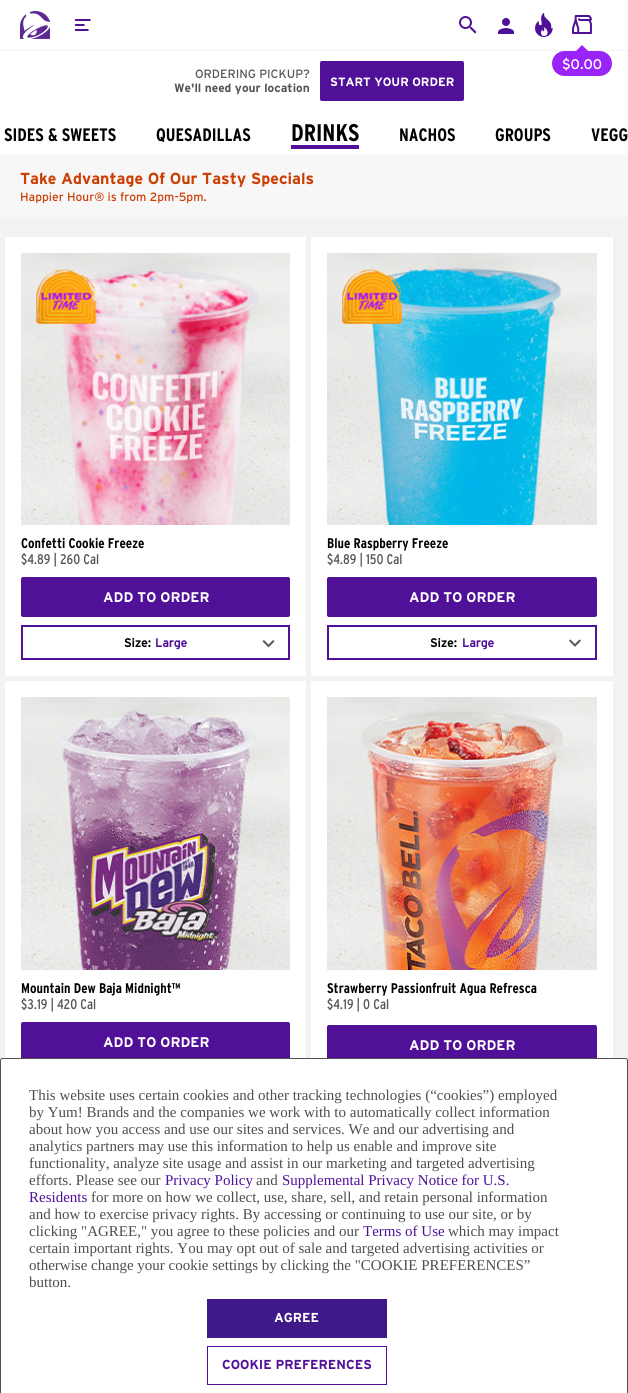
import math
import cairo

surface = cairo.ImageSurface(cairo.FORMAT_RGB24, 628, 1393)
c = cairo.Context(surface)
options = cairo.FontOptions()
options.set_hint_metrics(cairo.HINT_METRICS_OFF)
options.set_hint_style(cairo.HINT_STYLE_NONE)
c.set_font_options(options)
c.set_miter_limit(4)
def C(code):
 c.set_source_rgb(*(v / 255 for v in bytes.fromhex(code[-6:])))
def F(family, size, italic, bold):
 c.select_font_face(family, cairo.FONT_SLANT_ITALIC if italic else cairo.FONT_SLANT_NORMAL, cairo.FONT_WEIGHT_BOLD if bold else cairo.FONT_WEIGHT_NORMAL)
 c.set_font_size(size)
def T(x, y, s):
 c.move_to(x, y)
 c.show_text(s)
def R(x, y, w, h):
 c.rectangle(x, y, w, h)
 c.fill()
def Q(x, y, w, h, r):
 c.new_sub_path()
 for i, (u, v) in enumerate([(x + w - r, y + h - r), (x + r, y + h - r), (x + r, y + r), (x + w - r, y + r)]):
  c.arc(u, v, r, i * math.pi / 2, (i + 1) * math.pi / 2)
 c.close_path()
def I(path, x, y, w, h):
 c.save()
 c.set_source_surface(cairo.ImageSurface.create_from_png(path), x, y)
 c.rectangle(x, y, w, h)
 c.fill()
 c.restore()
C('ffffff')
c.paint()
C('f4f4f4')
R(0,50,628,1)
I('1.png',20,11,30,28)
I('2.png',74,19,17,12)
I('3.png',459,16,18,18)
I('4.png',498,18,16,16)
I('5.png',535,13,18,24)
I('6.png',572,15,20,19)
C('9a23f8')
Q(552,51,60,25,12.5)
c.fill()
c.new_path()
c.move_to(588,51)
c.line_to(576,51)
c.line_to(582,45)
c.close_path()
c.fill()
F('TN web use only',14,0,0)
C('ffffff')
T(562,69,'$0.00')
F('TN web use only',12,0,0)
C('565656')
T(195,78,'ORDERING PICKUP?')
F('TN web use only',12,0,1)
T(174,92,'We\'ll need your location')
C('501098')
Q(320,61,144,40,2)
c.fill()
C('ffffff')
T(330,86,'START YOUR ORDER')
F('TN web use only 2',18,0,1)
C('000000')
T(4,141,'SIDES & SWEETS')
T(156,141,'QUESADILLAS')
C('501098')
R(291,145,68,4)
F('TN web use only 2',24,0,1)
C('000000')
T(291,141,'DRINKS')
F('TN web use only 2',18,0,1)
T(399,141,'NACHOS')
T(495,141,'GROUPS')
T(591,141,'VEGG')
C('f7f7f7')
R(0,155,628,62)
F('TN web use only',16,0,1)
C('cb3f04')
T(20,184,'Take Advantage Of Our Tasty Specials')
F('TN web use only',12,0,0)
T(20,201,'Happier Hour® is from 2pm-5pm.')
C('f2f2f2')
R(0,217,628,844)
C('ffffff')
R(5,237,301,439)
I('7.png',21,253,269,272)
F('TN web use only 2',14,0,1)
C('000000')
T(21,548,'Confetti Cookie Freeze')
F('TN web use only 2',14,0,0)
C('565656')
T(21,564,'$4.89 | 260 Cal')
C('501098')
Q(21,577,269,40,2)
c.fill()
F('TN web use only',14,0,1)
C('ffffff')
T(103,602,'ADD TO ORDER')
c.rectangle(22,626,267,33)
C('501098')
c.stroke()
F('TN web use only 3',12,0,1)
C('000000')
T(124,647,'Size:')
C('501098')
T(155,647,'Large')
I('8.png',262,640,13,8)
C('ffffff')
R(311,237,302,439)
I('9.png',327,253,270,272)
F('TN web use only 2',14,0,1)
C('000000')
T(327,548,'Blue Raspberry Freeze')
F('TN web use only 2',14,0,0)
C('565656')
T(327,564,'$4.89 | 150 Cal')
C('501098')
Q(327,577,270,40,2)
c.fill()
F('TN web use only',14,0,1)
C('ffffff')
T(409,602,'ADD TO ORDER')
c.rectangle(328,626,268,33)
C('501098')
c.stroke()
F('TN web use only 3',12,0,1)
C('000000')
T(430,647,'Size:')
C('501098')
T(462,647,'Large')
I('10.png',569,639,12,8)
C('ffffff')
R(5,681,301,377)
I('11.png',21,697,269,273)
F('TN web use only 2',14,0,1)
C('000000')
T(21,993,'Mountain Dew Baja Midnight™')
F('TN web use only 2',14,0,0)
C('565656')
T(21,1009,'$3.19 | 420 Cal')
C('501098')
Q(21,1022,269,40,2)
c.fill()
F('TN web use only',14,0,1)
C('ffffff')
T(103,1047,'ADD TO ORDER')
R(311,681,302,377)
I('12.png',327,697,270,273)
F('TN web use only 2',14,0,1)
C('000000')
T(327,993,'Strawberry Passionfruit Agua Refresca')
F('TN web use only 2',14,0,0)
C('565656')
T(327,1009,'$4.19 | 0 Cal')
C('501098')
Q(327,1025,270,40,2)
c.fill()
F('TN web use only',14,0,1)
C('ffffff')
T(409,1050,'ADD TO ORDER')
Q(.5,1058.5,627,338,2)
c.fill_preserve()
C('4e4e4e')
c.set_line_width(1)
c.stroke()
F('Liberation Serif',15,0,0)
T(29,1100,'This website uses certain cookies and other tracking technologies (“cookies”) employed')
T(29,1117,'by Yum! Brands and the companies we work with to automatically collect information')
T(29,1134,'about how you access and use our sites and services. We and our advertising and')
T(29,1151,'analytics partners may use this information to help us enable and improve site')
T(29,1168,'functionality, analyze site usage and assist in our marketing and targeted advertising')
T(29,1185,'efforts. Please see our')
C('501098')
T(165,1185,'Privacy Policy')
C('4e4e4e')
T(256,1185,'and')
C('501098')
T(282,1185,'Supplemental Privacy Notice for U.S.')
T(29,1202,'Residents')
C('4e4e4e')
T(91,1202,'for more on how we collect, use, share, sell, and retain personal information')
T(29,1219,'and how to exercise privacy rights. By accessing or continuing to use our site, or by')
T(29,1236,'clicking "AGREE," you agree to these policies and our')
C('501098')
T(363,1236,'Terms of Use')
C('4e4e4e')
T(448,1236,'which may impact')
T(29,1253,'certain important rights. You may opt out of sale and targeted advertising activities or')
T(29,1270,'otherwise change your cookie settings by clicking the "COOKIE PREFERENCES”')
T(29,1287,'button.')
C('401989')
R(207,1299,180,39)
F('TN web use only',13,0,1)
C('ffffff')
T(274,1322,'AGREE')
c.rectangle(207.5,1346.5,179,38)
C('501098')
c.stroke()
T(222,1369,'COOKIE PREFERENCES')
surface.write_to_png('o.png')
